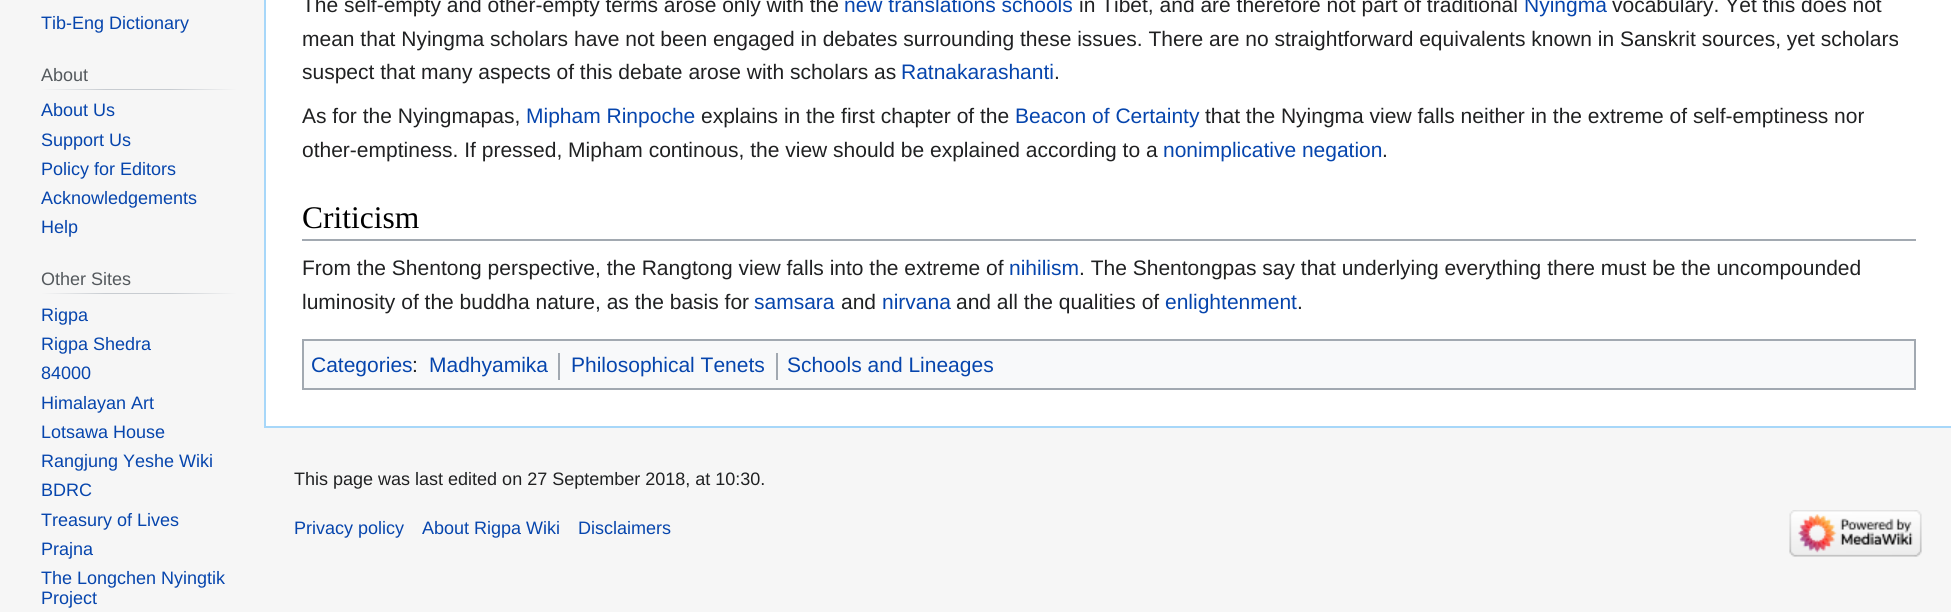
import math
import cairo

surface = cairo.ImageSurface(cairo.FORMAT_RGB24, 1951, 612)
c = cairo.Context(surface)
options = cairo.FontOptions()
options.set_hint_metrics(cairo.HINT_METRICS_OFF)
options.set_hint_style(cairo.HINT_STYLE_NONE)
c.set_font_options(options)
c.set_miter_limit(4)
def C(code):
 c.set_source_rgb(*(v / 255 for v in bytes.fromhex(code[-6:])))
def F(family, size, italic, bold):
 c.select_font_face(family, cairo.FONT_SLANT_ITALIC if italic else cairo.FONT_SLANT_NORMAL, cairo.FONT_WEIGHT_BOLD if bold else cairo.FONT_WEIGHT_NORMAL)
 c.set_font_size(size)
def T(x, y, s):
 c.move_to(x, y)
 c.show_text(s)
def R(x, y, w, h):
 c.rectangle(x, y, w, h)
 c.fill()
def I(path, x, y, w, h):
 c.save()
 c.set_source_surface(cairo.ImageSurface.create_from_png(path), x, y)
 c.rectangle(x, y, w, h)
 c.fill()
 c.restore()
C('f6f6f6')
c.paint()
F('Liberation Sans',18,0,0)
C('0645ad')
T(41,29,'Tib-Eng Dictionary')
gradient = cairo.LinearGradient(41,89,237,89)
gradient.add_color_stop_rgba(0,0.965,0.965,0.965,1)
gradient.add_color_stop_rgba(.33,0.784,0.8,0.82,1)
gradient.add_color_stop_rgba(.66,0.784,0.8,0.82,1)
gradient.add_color_stop_rgba(1,0.965,0.965,0.965,1)
c.set_source(gradient)
R(41,89,196,1)
C('54595d')
T(41,81,'About')
C('0645ad')
T(41,116,'About Us')
T(41,146,'Support Us')
T(41,175,'Policy for Editors')
T(41,204,'Acknowledgements')
T(41,233,'Help')
gradient = cairo.LinearGradient(41,293,237,293)
gradient.add_color_stop_rgba(0,0.965,0.965,0.965,1)
gradient.add_color_stop_rgba(.33,0.784,0.8,0.82,1)
gradient.add_color_stop_rgba(.66,0.784,0.8,0.82,1)
gradient.add_color_stop_rgba(1,0.965,0.965,0.965,1)
c.set_source(gradient)
R(41,293,196,1)
C('54595d')
T(41,285,'Other Sites')
C('0645ad')
T(41,321,'Rigpa')
T(41,350,'Rigpa Shedra')
T(41,379,'84000')
T(41,409,'Himalayan Art')
T(41,438,'Lotsawa House')
T(41,467,'Rangjung Yeshe Wiki')
T(41,496,'BDRC')
T(41,526,'Treasury of Lives')
T(41,555,'Prajna')
T(41,584,'The Longchen Nyingtik')
T(41,604,'Project')
C('ffffff')
R(266,0,1685,426)
C('a7d7f9')
R(264,426,1687,2)
R(264,0,2,428)
F('Liberation Sans',21,0,0)
C('202122')
T(302,12,'The self-empty and other-empty terms arose only with the')
C('0645ad')
T(844,12,'new translations schools')
C('202122')
T(1079,12,'in Tibet, and are therefore not part of traditional')
C('0645ad')
T(1524,12,'Nyingma')
C('202122')
T(1612,12,'vocabulary. Yet this does not')
T(302,46,'mean that Nyingma scholars have not been engaged in debates surrounding these issues. There are no straightforward equivalents known in Sanskrit sources, yet scholars')
T(302,79,'suspect that many aspects of this debate arose with scholars as')
C('0645ad')
T(901,79,'Ratnakarashanti')
C('202122')
T(1054,79,'.')
T(302,123,'As for the Nyingmapas,')
C('0645ad')
T(526,123,'Mipham Rinpoche')
C('202122')
T(701,123,'explains in the first chapter of the')
C('0645ad')
T(1015,123,'Beacon of Certainty')
C('202122')
T(1205,123,'that the Nyingma view falls neither in the extreme of self-emptiness nor')
T(302,157,'other-emptiness. If pressed, Mipham continous, the view should be explained according to a')
C('0645ad')
T(1163,157,'nonimplicative negation')
C('202122')
T(1382,157,'.')
C('a2a9b1')
R(302,239,1614,2)
F('Liberation Serif',31.5,0,0)
C('000000')
T(302,228,'Criticism')
F('Liberation Sans',21,0,0)
C('202122')
T(302,275,'From the Shentong perspective, the Rangtong view falls into the extreme of')
C('0645ad')
T(1009,275,'nihilism')
C('202122')
T(1079,275,'. The Shentongpas say that underlying everything there must be the uncompounded')
T(302,309,'luminosity of the buddha nature, as the basis for')
C('0645ad')
T(754,309,'samsara')
C('202122')
T(841,309,'and')
C('0645ad')
T(882,309,'nirvana')
C('202122')
T(956,309,'and all the qualities of')
C('0645ad')
T(1165,309,'enlightenment')
C('202122')
T(1297,309,'.')
C('f8f9fa')
c.rectangle(303,340,1612,49)
c.fill_preserve()
C('a2a9b1')
c.stroke()
C('0645ad')
T(311,372,'Categories')
C('202122')
T(412,372,':')
C('0645ad')
T(429,372,'Madhyamika')
C('a2a9b1')
R(558,353,2,27)
C('0645ad')
T(571,372,'Philosophical Tenets')
C('a2a9b1')
R(776,353,2,27)
C('0645ad')
T(787,372,'Schools and Lineages')
F('Liberation Sans',18,0,0)
C('202122')
T(294,485,'This page was last edited on 27 September 2018, at 10:30.')
C('0645ad')
T(294,534,'Privacy policy')
T(422,534,'About Rigpa Wiki')
T(578,534,'Disclaimers')
I('1.png',1789,510,133,47)
surface.write_to_png('o.png')
